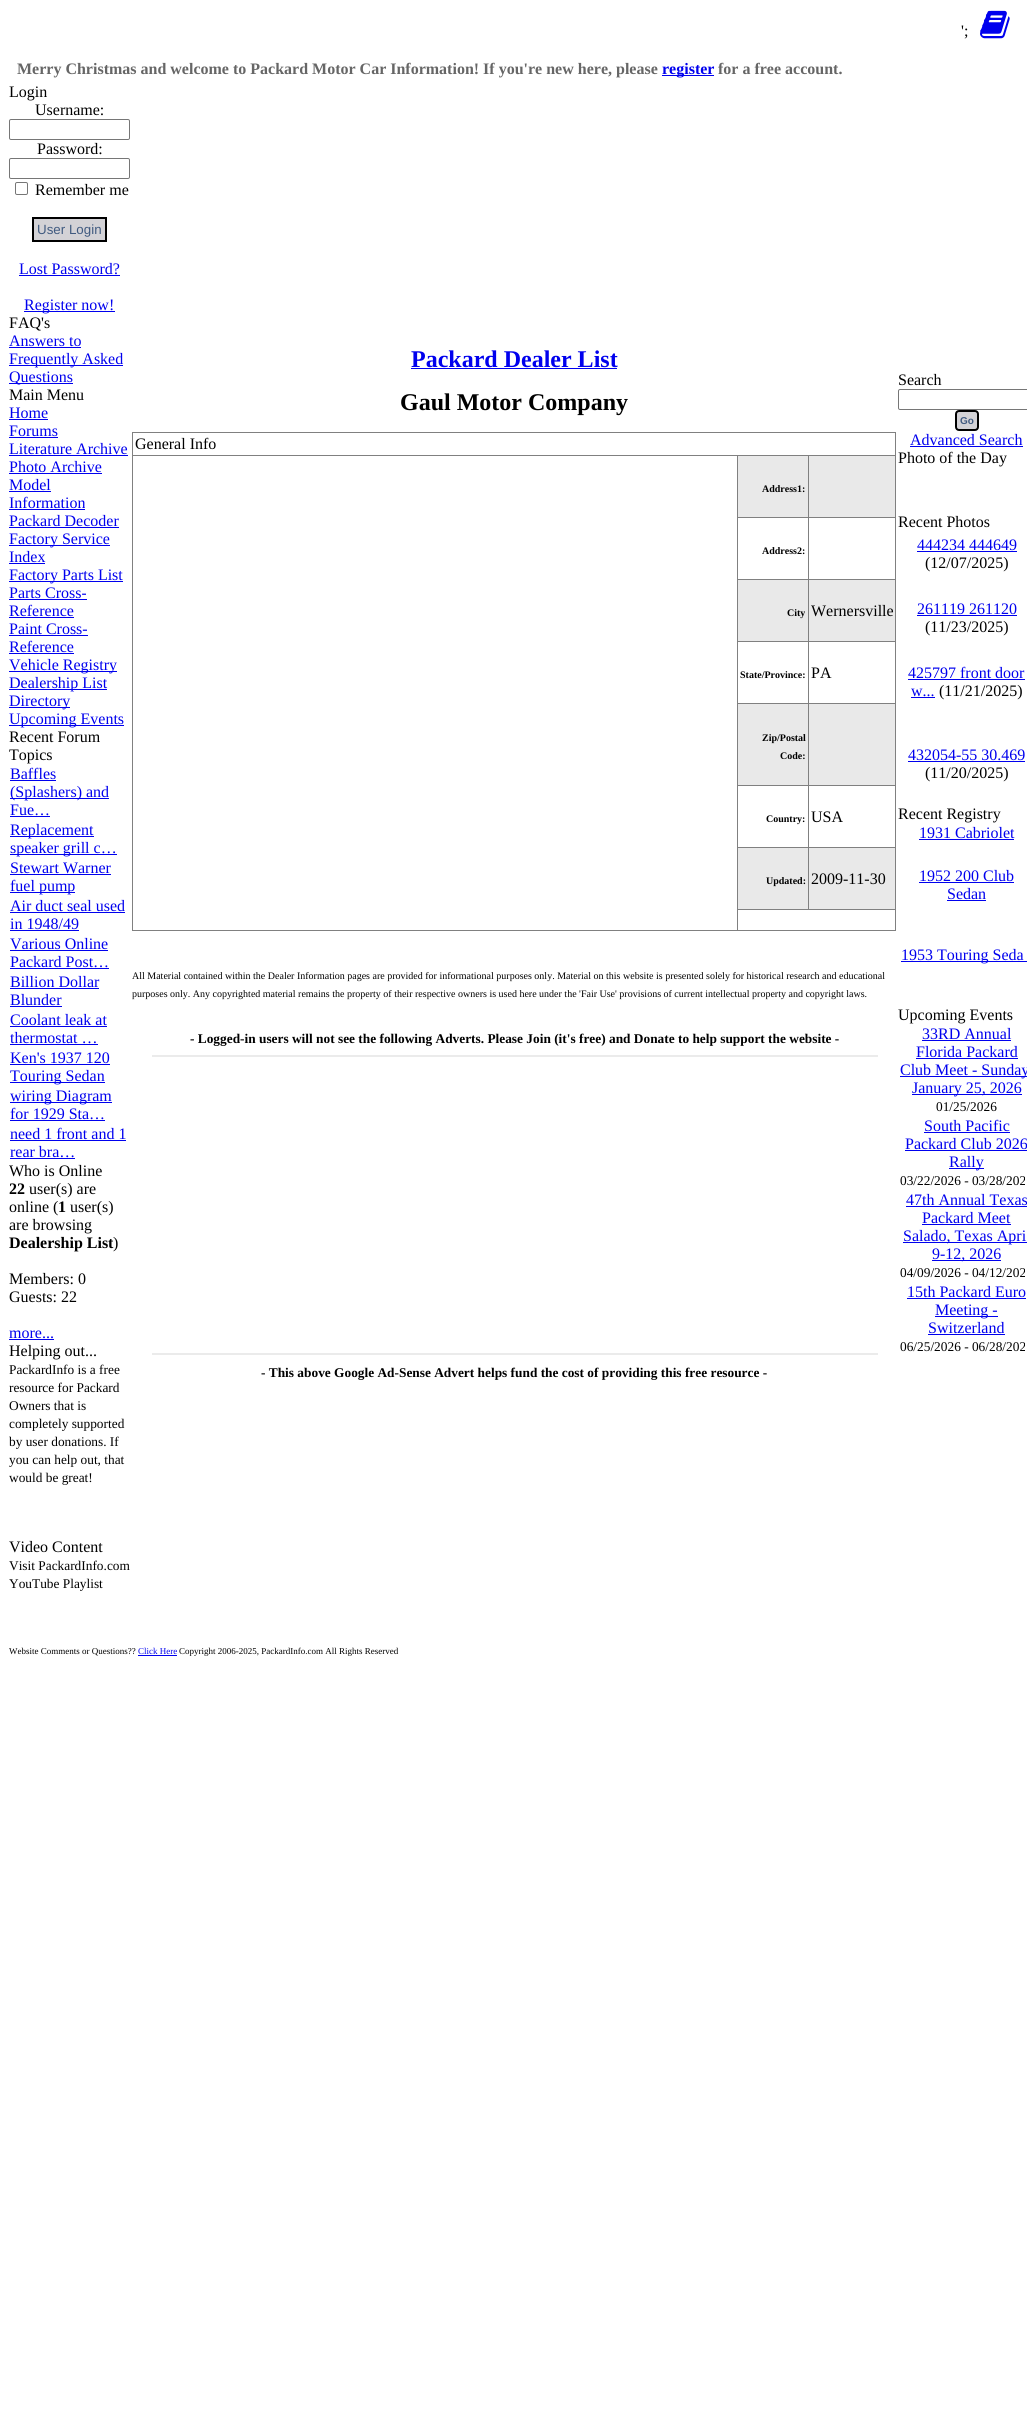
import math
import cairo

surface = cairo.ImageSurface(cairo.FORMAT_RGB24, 1027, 2417)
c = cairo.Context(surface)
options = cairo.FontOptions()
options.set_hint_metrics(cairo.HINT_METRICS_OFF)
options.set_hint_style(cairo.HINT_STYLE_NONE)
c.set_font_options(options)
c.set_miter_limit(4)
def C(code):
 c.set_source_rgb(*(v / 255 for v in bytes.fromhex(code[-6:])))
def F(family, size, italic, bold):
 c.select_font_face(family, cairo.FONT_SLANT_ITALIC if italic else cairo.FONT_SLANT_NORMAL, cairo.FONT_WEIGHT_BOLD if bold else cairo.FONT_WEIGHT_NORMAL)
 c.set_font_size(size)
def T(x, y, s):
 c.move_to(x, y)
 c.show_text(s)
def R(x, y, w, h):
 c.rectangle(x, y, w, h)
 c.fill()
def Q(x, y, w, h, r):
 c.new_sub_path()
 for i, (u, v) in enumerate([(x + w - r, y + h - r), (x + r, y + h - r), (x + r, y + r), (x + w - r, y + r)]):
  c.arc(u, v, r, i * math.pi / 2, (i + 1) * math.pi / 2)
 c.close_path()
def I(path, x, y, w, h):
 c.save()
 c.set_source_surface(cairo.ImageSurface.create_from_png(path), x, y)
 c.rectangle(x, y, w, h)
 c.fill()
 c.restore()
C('ffffff')
c.paint()
F('Liberation Serif',16,0,0)
C('000000')
T(961,36,'\';')
I('1.png',980,10,30,29)
F('Liberation Serif',16,0,1)
C('666666')
T(17,74,'Merry Christmas and welcome to Packard Motor Car Information! If you\'re new here, please')
C('0000ee')
R(662,75,52,1)
T(662,74,'register')
C('666666')
T(718,74,'for a free account.')
F('Liberation Serif',16,0,0)
C('000000')
T(9,97,'Login')
T(35,115,'Username:')
Q(9.5,119.5,120,20,1.5)
C('767676')
c.set_line_width(1)
c.stroke()
C('000000')
T(37,154,'Password:')
Q(9.5,158.5,120,20,1.5)
C('767676')
c.stroke()
Q(15.5,182.5,12,12,1.5)
c.stroke()
C('000000')
T(35,195,'Remember me')
C('d3d2d6')
c.rectangle(33,218,73,23)
c.fill_preserve()
C('000000')
c.set_line_width(2)
c.stroke()
F('Liberation Sans',13.35,0,0)
C('405a80')
T(37,234,'User Login')
F('Liberation Serif',16,0,0)
C('0000ee')
T(19,274,'Lost Password?')
R(19,275,101,1)
R(24,311,91,1)
T(24,310,'Register now!')
C('000000')
T(9,328,'FAQ\'s')
C('0000ee')
T(9,346,'Answers to')
R(9,347,72,1)
R(9,365,114,1)
T(9,364,'Frequently Asked')
R(9,383,64,1)
T(9,382,'Questions')
C('000000')
T(9,400,'Main Menu')
C('0000ee')
T(9,418,'Home')
R(9,419,39,1)
T(9,436,'Forums')
R(9,437,49,1)
T(9,454,'Literature Archive')
R(9,455,119,1)
T(9,472,'Photo Archive')
R(9,473,93,1)
T(9,490,'Model')
R(9,491,42,1)
T(9,508,'Information')
R(9,509,76,1)
T(9,526,'Packard Decoder')
R(9,527,110,1)
R(9,545,101,1)
T(9,544,'Factory Service')
T(9,562,'Index')
R(9,563,36,1)
R(9,581,114,1)
T(9,580,'Factory Parts List')
T(9,598,'Parts Cross-')
R(9,599,78,1)
T(9,616,'Reference')
R(9,617,65,1)
T(9,634,'Paint Cross-')
R(9,635,79,1)
T(9,652,'Reference')
R(9,653,65,1)
R(9,671,108,1)
T(9,670,'Vehicle Registry')
R(9,689,98,1)
T(9,688,'Dealership List')
R(9,707,61,1)
T(9,706,'Directory')
R(9,725,115,1)
T(9,724,'Upcoming Events')
C('000000')
T(9,742,'Recent Forum')
T(9,760,'Topics')
C('0000ee')
T(10,779,'Baffles')
R(10,780,46,1)
R(10,798,99,1)
T(10,797,'(Splashers) and')
T(10,815,'Fue…')
R(10,816,40,1)
R(10,836,84,1)
T(10,835,'Replacement')
R(10,854,107,1)
T(10,853,'speaker grill c…')
T(10,873,'Stewart Warner')
R(10,874,101,1)
R(10,892,65,1)
T(10,891,'fuel pump')
T(10,911,'Air duct seal used')
R(10,912,115,1)
T(10,929,'in 1948/49')
R(10,930,69,1)
T(10,949,'Various Online')
R(10,950,98,1)
T(10,967,'Packard Post…')
R(10,968,99,1)
T(10,987,'Billion Dollar')
R(10,988,89,1)
T(10,1005,'Blunder')
R(10,1006,52,1)
T(10,1025,'Coolant leak at')
R(10,1026,97,1)
T(10,1043,'thermostat …')
R(10,1044,88,1)
T(10,1063,'Ken\'s 1937 120')
R(10,1064,100,1)
R(10,1082,95,1)
T(10,1081,'Touring Sedan')
R(10,1102,102,1)
T(10,1101,'wiring Diagram')
T(10,1119,'for 1929 Sta…')
R(10,1120,95,1)
T(10,1139,'need 1 front and 1')
R(10,1140,116,1)
T(10,1157,'rear bra…')
R(10,1158,65,1)
C('000000')
T(9,1176,'Who is Online')
F('Liberation Serif',16,0,1)
T(9,1194,'22')
F('Liberation Serif',16,0,0)
T(29,1194,'user(s) are')
T(9,1212,'online (')
F('Liberation Serif',16,0,1)
T(58,1212,'1')
F('Liberation Serif',16,0,0)
T(70,1212,'user(s)')
T(9,1230,'are browsing')
F('Liberation Serif',16,0,1)
T(9,1248,'Dealership List')
F('Liberation Serif',16,0,0)
T(113,1248,')')
T(9,1284,'Members: 0')
T(9,1302,'Guests: 22')
C('0000ee')
T(9,1338,'more...')
R(9,1339,45,1)
C('000000')
T(9,1356,'Helping out...')
F('Liberation Serif',13.35,0,0)
T(9,1374,'PackardInfo is a free')
T(9,1392,'resource for Packard')
T(9,1410,'Owners that is')
T(9,1428,'completely supported')
T(9,1446,'by user donations. If')
T(9,1464,'you can help out, that')
T(9,1482,'would be great!')
F('Liberation Serif',16,0,0)
T(9,1552,'Video Content')
F('Liberation Serif',13.35,0,0)
T(9,1570,'Visit PackardInfo.com')
T(9,1588,'YouTube Playlist')
F('Liberation Serif',24,0,1)
C('0000ee')
T(411,367,'Packard Dealer List')
R(411,368,206,1)
C('000000')
T(400,410,'Gaul Motor Company')
C('808080')
R(132,432,764,1)
R(895,432,1,499)
R(132,930,764,1)
R(132,432,1,499)
F('Liberation Serif',16,0,0)
C('000000')
T(135,449,'General Info')
C('808080')
R(808,455,88,1)
R(808,517,88,1)
R(808,579,88,1)
R(808,641,88,1)
R(808,703,88,1)
R(808,785,88,1)
R(808,847,88,1)
R(737,909,159,1)
R(808,847,1,63)
R(737,847,72,1)
R(808,785,1,63)
R(737,785,72,1)
R(808,703,1,83)
R(737,703,72,1)
R(808,641,1,63)
R(737,641,72,1)
R(808,579,1,63)
R(737,579,72,1)
R(808,517,1,63)
R(737,517,72,1)
R(808,455,1,63)
R(737,455,72,1)
R(737,909,1,22)
R(737,847,1,63)
R(737,785,1,63)
R(737,703,1,83)
R(737,641,1,63)
R(737,579,1,63)
R(737,517,1,63)
R(737,455,1,63)
R(132,455,606,1)
C('e9e9e9')
R(738,456,70,61)
F('Liberation Serif',10,0,1)
C('000000')
T(762,492,'Address1:')
C('e9e9e9')
R(809,456,86,61)
C('000000')
T(762,554,'Address2:')
C('e9e9e9')
R(738,580,70,61)
C('000000')
T(787,616,'City')
C('e9e9e9')
R(809,580,86,61)
F('Liberation Serif',16,0,0)
C('000000')
T(811,616,'Wernersville')
F('Liberation Serif',10,0,1)
T(740,678,'State/Province:')
F('Liberation Serif',16,0,0)
T(811,678,'PA')
C('e9e9e9')
R(738,704,70,81)
F('Liberation Serif',10,0,1)
C('000000')
T(762,741,'Zip/Postal')
T(780,759,'Code:')
C('e9e9e9')
R(809,704,86,81)
C('000000')
T(766,822,'Country:')
F('Liberation Serif',16,0,0)
T(811,822,'USA')
C('e9e9e9')
R(738,848,70,61)
F('Liberation Serif',10,0,1)
C('000000')
T(766,884,'Updated:')
C('e9e9e9')
R(809,848,86,61)
F('Liberation Serif',16,0,0)
C('000000')
T(811,884,'2009-11-30')
F('Liberation Serif',10,0,0)
T(132,979,'All Material contained within the Dealer Information pages are provided for informational purposes only. Material on this website is presented solely for historical research and educational')
T(132,997,'purposes only. Any copyrighted material remains the property of their respective owners is used here under the \'Fair Use\' provisions of current intellectual property and copyright laws.')
F('Liberation Serif',13.35,0,1)
T(190,1043,'- Logged-in users will not see the following Adverts. Please Join (it\'s free) and Donate to help support the website -')
C('ebebeb')
R(152,1055,726,2)
R(152,1353,726,2)
C('000000')
T(261,1377,'- This above Google Ad-Sense Advert helps fund the cost of providing this free resource -')
F('Liberation Serif',16,0,0)
T(898,385,'Search')
Q(898.5,389.5,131,20,1.5)
C('767676')
c.set_line_width(1)
c.stroke()
C('d3d2d6')
Q(956,411,22,19,3)
c.fill_preserve()
C('000000')
c.set_line_width(2)
c.stroke()
F('Liberation Sans',10,0,1)
C('405a80')
T(960,424,'Go')
F('Liberation Serif',16,0,0)
C('0000ee')
T(910,445,'Advanced Search')
R(910,446,113,1)
C('000000')
T(898,463,'Photo of the Day')
T(898,527,'Recent Photos')
C('0000ee')
T(917,550,'444234 444649')
R(917,551,100,1)
C('000000')
T(925,568,'(12/07/2025)')
C('0000ee')
T(917,614,'261119 261120')
R(917,615,100,1)
C('000000')
T(925,632,'(11/23/2025)')
C('0000ee')
T(908,678,'425797 front door')
R(908,679,117,1)
T(911,696,'w...')
R(911,697,24,1)
C('000000')
T(939,696,'(11/21/2025)')
C('0000ee')
T(908,760,'432054-55 30.469')
R(908,761,117,1)
C('000000')
T(925,778,'(11/20/2025)')
T(898,819,'Recent Registry')
C('0000ee')
T(919,838,'1931 Cabriolet')
R(919,839,95,1)
T(919,881,'1952 200 Club')
R(919,882,95,1)
T(947,899,'Sedan')
R(947,900,39,1)
R(901,961,126,1)
T(901,960,'1953 Touring Seda')
C('000000')
T(898,1020,'Upcoming Events')
C('0000ee')
T(922,1039,'33RD Annual')
R(922,1040,89,1)
T(916,1057,'Florida Packard')
R(916,1058,102,1)
R(900,1076,127,1)
T(900,1075,'Club Meet - Sunday')
R(912,1094,110,1)
T(912,1093,'January 25, 2026')
F('Liberation Serif',13.35,0,0)
C('000000')
T(936,1111,'01/25/2026')
F('Liberation Serif',16,0,0)
C('0000ee')
T(924,1131,'South Pacific')
R(924,1132,86,1)
T(905,1149,'Packard Club 2026')
R(905,1150,122,1)
R(949,1168,35,1)
T(949,1167,'Rally')
F('Liberation Serif',13.35,0,0)
C('000000')
T(900,1185,'03/22/2026 - 03/28/202')
F('Liberation Serif',16,0,0)
C('0000ee')
T(906,1205,'47th Annual Texas')
R(906,1206,121,1)
T(922,1223,'Packard Meet')
R(922,1224,89,1)
R(903,1242,124,1)
T(903,1241,'Salado, Texas Apri')
R(932,1260,69,1)
T(932,1259,'9-12, 2026')
F('Liberation Serif',13.35,0,0)
C('000000')
T(900,1277,'04/09/2026 - 04/12/202')
F('Liberation Serif',16,0,0)
C('0000ee')
T(907,1297,'15th Packard Euro')
R(907,1298,119,1)
R(935,1316,63,1)
T(935,1315,'Meeting -')
T(928,1333,'Switzerland')
R(928,1334,77,1)
F('Liberation Serif',13.35,0,0)
C('000000')
T(900,1351,'06/25/2026 - 06/28/202')
F('Liberation Serif',9,0,0)
T(9,1654,'Website Comments or Questions??')
C('0000ee')
T(138,1654,'Click Here')
R(138,1655,39,1)
C('000000')
T(179,1654,'Copyright 2006-2025, PackardInfo.com All Rights Reserved')
surface.write_to_png('o.png')
